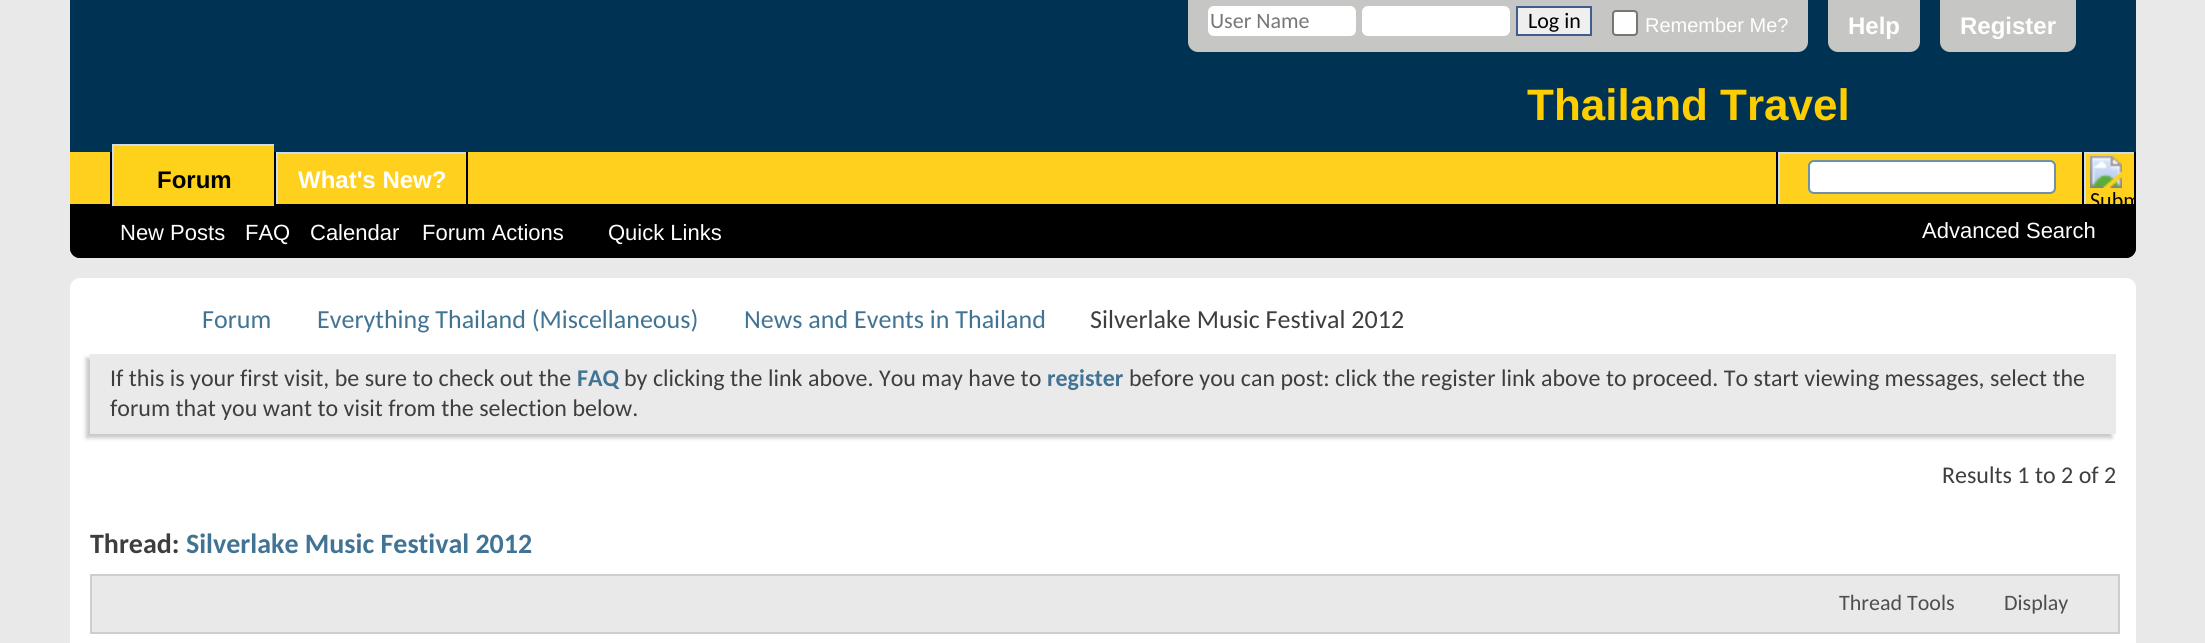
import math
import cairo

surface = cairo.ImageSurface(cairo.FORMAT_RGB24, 2205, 643)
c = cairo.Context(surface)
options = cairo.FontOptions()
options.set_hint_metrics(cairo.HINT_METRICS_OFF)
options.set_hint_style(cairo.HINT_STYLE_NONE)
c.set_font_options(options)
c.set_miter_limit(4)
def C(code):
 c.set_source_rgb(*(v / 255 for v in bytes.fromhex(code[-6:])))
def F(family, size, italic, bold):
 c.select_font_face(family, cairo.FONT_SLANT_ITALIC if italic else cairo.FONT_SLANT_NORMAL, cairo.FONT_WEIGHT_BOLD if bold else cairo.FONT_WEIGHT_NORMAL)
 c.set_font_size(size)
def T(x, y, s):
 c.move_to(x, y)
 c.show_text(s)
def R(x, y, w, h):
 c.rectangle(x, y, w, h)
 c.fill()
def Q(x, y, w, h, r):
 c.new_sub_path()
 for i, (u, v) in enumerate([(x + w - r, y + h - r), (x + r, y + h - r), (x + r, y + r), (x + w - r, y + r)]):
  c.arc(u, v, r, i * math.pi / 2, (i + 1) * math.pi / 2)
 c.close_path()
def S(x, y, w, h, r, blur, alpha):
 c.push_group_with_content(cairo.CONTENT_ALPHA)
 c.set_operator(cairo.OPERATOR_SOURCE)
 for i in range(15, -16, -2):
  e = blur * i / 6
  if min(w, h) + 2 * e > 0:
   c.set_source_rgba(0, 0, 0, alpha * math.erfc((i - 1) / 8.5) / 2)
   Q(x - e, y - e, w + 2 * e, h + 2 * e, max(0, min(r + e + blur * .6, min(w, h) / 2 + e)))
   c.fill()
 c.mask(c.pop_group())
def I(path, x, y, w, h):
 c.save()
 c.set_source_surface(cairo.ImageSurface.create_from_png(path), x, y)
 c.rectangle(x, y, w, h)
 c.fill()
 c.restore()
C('e9e9e9')
c.paint()
C('003253')
c.new_path()
c.move_to(70,0)
c.line_to(2136,0)
c.line_to(2136,248)
c.curve_to(2136,253.5,2131.5,258,2126,258)
c.line_to(80,258)
c.curve_to(74.5,258,70,253.5,70,248)
c.close_path()
c.fill()
C('c6c6c4')
c.new_path()
c.move_to(1188,0)
c.line_to(1808,0)
c.line_to(1808,42)
c.curve_to(1808,47.5,1803.5,52,1798,52)
c.line_to(1198,52)
c.curve_to(1192.5,52,1188,47.5,1188,42)
c.close_path()
c.fill()
C('ffffff')
Q(1208,6,148,30,6)
c.fill()
F('Carlito',22,0,0)
C('777777')
T(1210,28,'User Name')
C('ffffff')
Q(1362,6,148,30,6)
c.fill()
C('efefef')
c.rectangle(1517,7,74,28)
c.fill_preserve()
C('415d8d')
c.stroke()
C('000000')
T(1528,28,'Log in')
C('ffffff')
Q(1613,11,24,24,3)
c.fill_preserve()
C('767676')
c.stroke()
F('Liberation Sans',20,0,0)
C('ffffff')
T(1645,32,'Remember Me?')
C('c6c6c4')
c.new_path()
c.move_to(1828,0)
c.line_to(1920,0)
c.line_to(1920,42)
c.curve_to(1920,47.5,1915.5,52,1910,52)
c.line_to(1838,52)
c.curve_to(1832.5,52,1828,47.5,1828,42)
c.close_path()
c.fill()
F('Liberation Sans',24,0,1)
C('ffffff')
T(1848,34,'Help')
C('c6c6c4')
c.new_path()
c.move_to(1940,0)
c.line_to(2076,0)
c.line_to(2076,42)
c.curve_to(2076,47.5,2071.5,52,2066,52)
c.line_to(1950,52)
c.curve_to(1944.5,52,1940,47.5,1940,42)
c.close_path()
c.fill()
C('ffffff')
T(1960,34,'Register')
F('Liberation Sans',44,0,1)
C('ffce00')
T(1527,120,'Thailand Travel')
C('000000')
c.new_path()
c.move_to(70,152)
c.line_to(2136,152)
c.line_to(2136,248)
c.curve_to(2136,253.5,2131.5,258,2126,258)
c.line_to(80,258)
c.curve_to(74.5,258,70,253.5,70,248)
c.close_path()
c.fill()
C('ffd01e')
R(70,152,2064,52)
C('000000')
R(274,152,2,52)
R(110,152,2,52)
C('fed21b')
R(114,146,160,60)
C('cedfeb')
R(112,144,162,2)
R(112,144,2,62)
F('Liberation Sans',24,0,1)
C('000000')
T(157,188,'Forum')
R(466,152,2,54)
C('cedfeb')
R(276,152,190,2)
R(276,152,2,54)
C('ffffff')
T(298,188,'What\'s New?')
C('000000')
R(276,204,2,2)
F('Liberation Sans',22,0,0)
C('ffffff')
T(120,240,'New Posts')
T(245,240,'FAQ')
T(310,240,'Calendar')
T(422,240,'Forum Actions')
T(608,240,'Quick Links')
C('000000')
R(1776,152,2,52)
C('cedfeb')
R(1778,152,304,2)
R(1778,152,2,52)
C('ffffff')
Q(1809,161,246,32,5)
c.fill_preserve()
C('6b91ab')
c.stroke()
C('000000')
R(2082,152,2,52)
C('cedfeb')
R(2084,152,50,2)
R(2084,152,2,52)
I('1.png',2090,156,44,48)
C('ffffff')
T(1922,238,'Advanced Search')
Q(70,278,2066,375,10)
c.fill()
F('Carlito',26,0,0)
C('417394')
T(202,328,'Forum')
T(317,328,'Everything Thailand (Miscellaneous)')
T(744,328,'News and Events in Thailand')
C('3e3e3e')
T(1090,328,'Silverlake Music Festival 2012')
C('c8c8c8')
S(86,358,2026,80,0,2,1)
C('eaeaea')
R(90,354,2026,80)
F('Carlito',24,0,0)
C('3e3e3e')
T(110,386,'If this is your first visit, be sure to check out the')
F('Carlito',24,0,1)
C('417394')
T(577,386,'FAQ')
F('Carlito',24,0,0)
C('3e3e3e')
T(624,386,'by clicking the link above. You may have to')
F('Carlito',24,0,1)
C('417394')
T(1047,386,'register')
F('Carlito',24,0,0)
C('3e3e3e')
T(1129,386,'before you can post: click the register link above to proceed. To start viewing messages, select the')
T(110,416,'forum that you want to visit from the selection below.')
T(1942,483,'Results 1 to 2 of 2')
F('Carlito',28,0,1)
T(90,553,'Thread:')
C('417394')
T(186,553,'Silverlake Music Festival 2012')
C('e9e9e9')
c.rectangle(91,575,2028,58)
c.fill_preserve()
C('cecece')
c.stroke()
F('Carlito',22,0,0)
C('4e4e4e')
T(1839,610,'Thread Tools')
T(2004,610,'Display')
surface.write_to_png('o.png')
